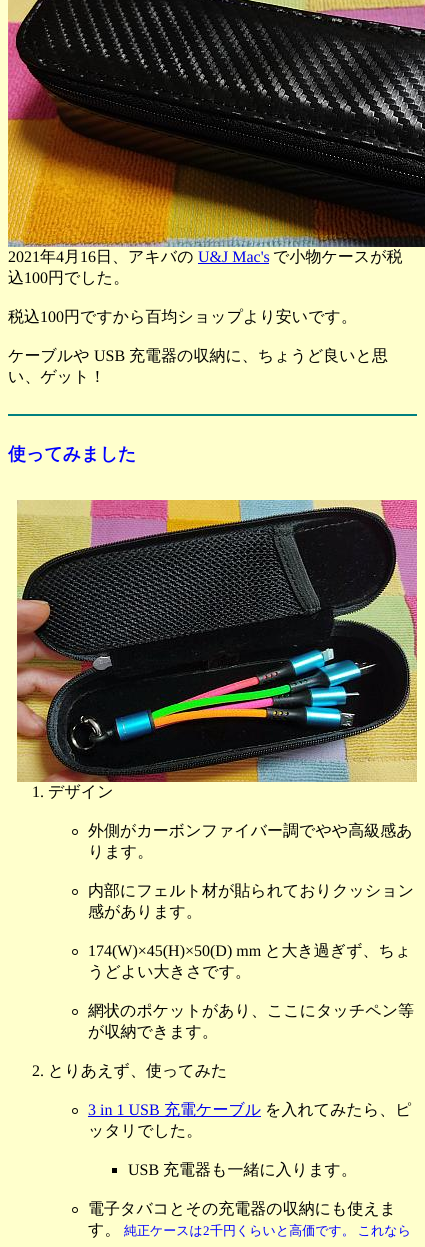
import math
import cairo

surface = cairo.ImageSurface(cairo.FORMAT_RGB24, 425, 1247)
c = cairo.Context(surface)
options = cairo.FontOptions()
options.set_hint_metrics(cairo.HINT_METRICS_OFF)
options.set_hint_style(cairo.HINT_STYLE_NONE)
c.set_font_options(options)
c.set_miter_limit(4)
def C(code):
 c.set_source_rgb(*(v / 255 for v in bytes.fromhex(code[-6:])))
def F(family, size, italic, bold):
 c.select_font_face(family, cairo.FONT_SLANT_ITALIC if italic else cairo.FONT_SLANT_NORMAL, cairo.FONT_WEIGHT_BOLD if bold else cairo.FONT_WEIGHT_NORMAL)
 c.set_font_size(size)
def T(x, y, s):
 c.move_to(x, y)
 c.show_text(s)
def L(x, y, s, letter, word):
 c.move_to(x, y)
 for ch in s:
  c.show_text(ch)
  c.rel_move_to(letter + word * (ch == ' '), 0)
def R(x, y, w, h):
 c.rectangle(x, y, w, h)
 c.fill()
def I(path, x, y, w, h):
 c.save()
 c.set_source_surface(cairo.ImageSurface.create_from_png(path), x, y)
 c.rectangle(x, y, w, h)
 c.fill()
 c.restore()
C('ffffcc')
c.paint()
I('1.png',8,0,417,247)
F('Liberation Serif',16,0,0)
C('000000')
T(8,262,'2021')
F('WenQuanYi Zen Hei Medium',16,0,0)
T(40,262,'年')
F('Liberation Serif',16,0,0)
T(56,262,'4')
F('WenQuanYi Zen Hei Medium',16,0,0)
T(64,262,'月')
F('Liberation Serif',16,0,0)
T(80,262,'16')
F('WenQuanYi Zen Hei Medium',16,0,0)
T(96,262,'日、アキバの')
F('Liberation Serif',16,0,0)
C('0000ee')
T(198,262,'U&J Mac\'s')
R(198,263,71,1)
F('WenQuanYi Zen Hei Medium',16,0,0)
C('000000')
T(273,262,'で小物ケースが税')
T(8,283,'込')
F('Liberation Serif',16,0,0)
T(24,283,'100')
F('WenQuanYi Zen Hei Medium',16,0,0)
T(48,283,'円でした。')
T(8,322,'税込')
F('Liberation Serif',16,0,0)
T(40,322,'100')
F('WenQuanYi Zen Hei Medium',16,0,0)
T(64,322,'円ですから百均ショップより安いです。')
T(8,361,'ケーブルや')
F('Liberation Serif',16,0,0)
T(94,361,'USB')
F('WenQuanYi Zen Hei Medium',16,0,0)
T(129,361,'充電器の収納に、ちょうど良いと思')
T(8,382,'い、ゲット！')
C('008080')
R(8,414,409,2)
F('WenQuanYi Zen Hei',18,0,1)
C('0000ff')
T(8,460,'使ってみました')
I('2.png',17,500,400,282)
F('Liberation Serif',16,0,0)
C('000000')
T(32,797,'1.')
F('WenQuanYi Zen Hei Medium',16,0,0)
T(48,797,'デザイン')
c.new_path()
c.arc(75,832,2.5,0,2 * math.pi)
c.set_line_width(1)
c.stroke()
T(88,836,'外側がカーボンファイバー調でやや高級感あ')
T(88,857,'ります。')
c.new_path()
c.arc(75,892,2.5,0,2 * math.pi)
c.stroke()
T(88,896,'内部にフェルト材が貼られておりクッション')
T(88,917,'感があります。')
c.new_path()
c.arc(75,952,2.5,0,2 * math.pi)
c.stroke()
F('Liberation Serif',16,0,0)
T(88,956,'174(W)×45(H)×50(D) mm')
F('WenQuanYi Zen Hei Medium',16,0,0)
T(265,956,'と大き過ぎず、ちょ')
T(88,977,'うどよい大きさです。')
c.new_path()
c.arc(75,1012,2.5,0,2 * math.pi)
c.stroke()
T(88,1016,'網状のポケットがあり、ここにタッチペン等')
T(88,1037,'が収納できます。')
F('Liberation Serif',16,0,0)
T(32,1076,'2.')
F('WenQuanYi Zen Hei Medium',16,0,0)
T(48,1076,'とりあえず、使ってみた')
c.new_path()
c.arc(75,1111,2.5,0,2 * math.pi)
c.stroke()
F('Liberation Serif',16,0,0)
C('0000ee')
T(88,1115,'3 in 1 USB')
R(88,1116,173,1)
F('WenQuanYi Zen Hei Medium',16,0,0)
T(164,1115,'充電ケーブル')
C('000000')
T(265,1115,'を入れてみたら、ピ')
T(88,1136,'ッタリでした。')
R(112,1168,5,5)
F('Liberation Serif',16,0,0)
T(128,1175,'USB')
F('WenQuanYi Zen Hei Medium',16,0,0)
T(163,1175,'充電器も一緒に入ります。')
c.new_path()
c.arc(75,1210,2.5,0,2 * math.pi)
c.stroke()
T(88,1214,'電子タバコとその充電器の収納にも使えま')
T(88,1235,'す。')
F('WenQuanYi Zen Hei Medium',13,0,0)
C('0000ff')
T(124,1235,'純正ケースは')
F('Liberation Serif',13,0,0)
T(203,1235,'2')
F('WenQuanYi Zen Hei Medium',13,0,0)
L(210,1235,'千円くらいと高価です。 これなら',0,-1)
surface.write_to_png('o.png')
